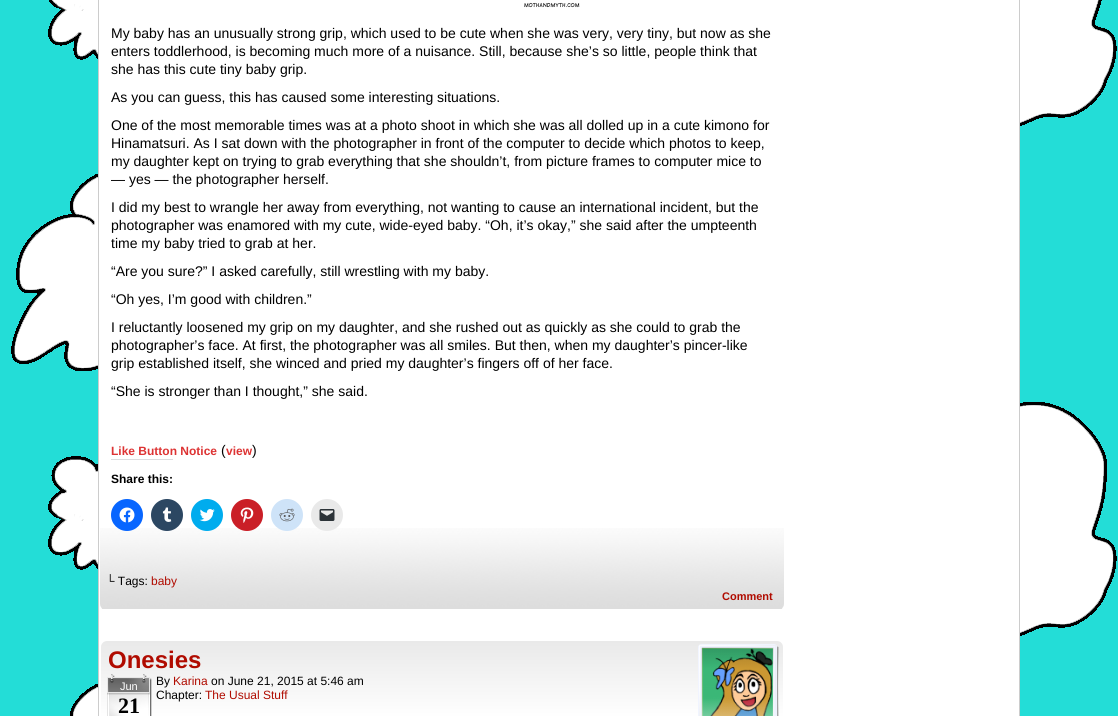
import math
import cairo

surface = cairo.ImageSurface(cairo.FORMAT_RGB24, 1118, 716)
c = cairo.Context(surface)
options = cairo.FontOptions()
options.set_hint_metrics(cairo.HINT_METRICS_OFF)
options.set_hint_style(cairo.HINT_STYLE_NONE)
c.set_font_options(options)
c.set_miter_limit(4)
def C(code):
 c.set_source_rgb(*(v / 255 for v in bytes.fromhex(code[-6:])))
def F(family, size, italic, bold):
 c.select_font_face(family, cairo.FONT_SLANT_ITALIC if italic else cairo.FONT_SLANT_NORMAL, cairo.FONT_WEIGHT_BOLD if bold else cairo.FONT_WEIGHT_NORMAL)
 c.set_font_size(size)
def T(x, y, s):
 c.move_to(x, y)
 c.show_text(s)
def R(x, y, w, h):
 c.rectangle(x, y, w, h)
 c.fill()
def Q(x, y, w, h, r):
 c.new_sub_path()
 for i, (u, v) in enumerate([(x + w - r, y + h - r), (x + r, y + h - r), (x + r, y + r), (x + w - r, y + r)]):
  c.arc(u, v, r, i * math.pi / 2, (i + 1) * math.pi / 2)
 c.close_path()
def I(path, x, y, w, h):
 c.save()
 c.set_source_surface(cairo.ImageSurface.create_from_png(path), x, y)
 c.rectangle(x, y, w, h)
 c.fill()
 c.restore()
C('23ddd7')
c.paint()
I('1.png',11,0,1106,716)
C('ffffff')
c.rectangle(98.5,-.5,921,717)
c.fill_preserve()
C('cccccc')
c.set_line_width(1)
c.stroke()
I('2.png',100,528,684,81)
I('3.png',524,2,56,6)
F('Liberation Sans',14,0,0)
C('000000')
T(111,38,'My baby has an unusually strong grip, which used to be cute when she was very, very tiny, but now as she')
T(111,56,'enters toddlerhood, is becoming much more of a nuisance. Still, because she’s so little, people think that')
T(111,74,'she has this cute tiny baby grip.')
T(111,102,'As you can guess, this has caused some interesting situations.')
T(111,130,'One of the most memorable times was at a photo shoot in which she was all dolled up in a cute kimono for')
T(111,148,'Hinamatsuri. As I sat down with the photographer in front of the computer to decide which photos to keep,')
T(111,166,'my daughter kept on trying to grab everything that she shouldn’t, from picture frames to computer mice to')
T(111,184,'— yes — the photographer herself.')
T(111,212,'I did my best to wrangle her away from everything, not wanting to cause an international incident, but the')
T(111,230,'photographer was enamored with my cute, wide-eyed baby. “Oh, it’s okay,” she said after the umpteenth')
T(111,248,'time my baby tried to grab at her.')
T(111,276,'“Are you sure?” I asked carefully, still wrestling with my baby.')
T(111,304,'“Oh yes, I’m good with children.”')
T(111,332,'I reluctantly loosened my grip on my daughter, and she rushed out as quickly as she could to grab the')
T(111,350,'photographer’s face. At first, the photographer was all smiles. But then, when my daughter’s pincer-like')
T(111,368,'grip established itself, she winced and pried my daughter’s fingers off of her face.')
T(111,396,'“She is stronger than I thought,” she said.')
F('Liberation Sans',12,0,1)
C('dd3333')
T(111,455,'Like Button Notice')
F('Liberation Sans',14,0,0)
C('000000')
T(221,455,'(')
T(252,455,')')
F('Liberation Sans',12,0,1)
C('dd3333')
T(226,455,'view')
C('dcdcde')
R(111,459,62,1)
C('000000')
T(111,483,'Share this:')
C('0866ff')
c.new_path()
c.arc(127,515,16,0,2 * math.pi)
c.fill()
I('4.png',119,507,16,16)
C('2c4762')
c.arc(167,515,16,0,2 * math.pi)
c.fill()
I('5.png',162,507,10,15)
C('00acee')
c.arc(207,515,16,0,2 * math.pi)
c.fill()
I('6.png',199,509,16,13)
C('ca1f27')
c.arc(247,515,16,0,2 * math.pi)
c.fill()
I('7.png',240,507,14,16)
C('cee3f8')
c.arc(287,515,16,0,2 * math.pi)
c.fill()
I('8.png',279,508,16,14)
C('e9e9e9')
c.arc(327,515,16,0,2 * math.pi)
c.fill()
I('9.png',319,509,16,12)
F('Liberation Sans',12,0,0)
C('000000')
T(106,585,'└ Tags:')
C('b00b00')
T(151,585,'baby')
F('Liberation Sans',11,0,1)
T(722,600,'Comment')
gradient = cairo.LinearGradient(442,641,442,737)
gradient.add_color_stop_rgba(0,0.914,0.914,0.914,1)
gradient.add_color_stop_rgba(.8,1,1,1,1)
gradient.add_color_stop_rgba(1,1,1,1,1)
c.set_source(gradient)
Q(101,641,682,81,6)
c.fill()
F('Liberation Sans',24,0,1)
C('b00b00')
T(108,668,'Onesies')
I('10.png',107,674,45,42)
F('Liberation Sans',11,0,0)
C('ffffff')
T(120,690,'Jun')
F('Liberation Serif',22,0,1)
C('000000')
T(118,713,'21')
F('Liberation Sans',12,0,0)
T(156,685,'By')
C('b00b00')
T(173,685,'Karina')
C('000000')
T(211,685,'on June 21, 2015 at 5:46 am')
T(156,699,'Chapter:')
C('b00b00')
T(205,699,'The Usual Stuff')
I('11.png',698,644,81,72)
surface.write_to_png('o.png')
